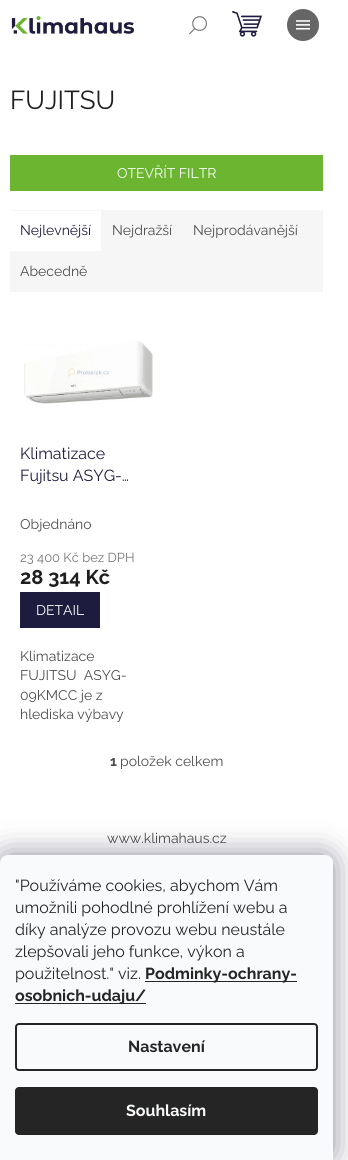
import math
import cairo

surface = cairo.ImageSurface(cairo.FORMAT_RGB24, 348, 1160)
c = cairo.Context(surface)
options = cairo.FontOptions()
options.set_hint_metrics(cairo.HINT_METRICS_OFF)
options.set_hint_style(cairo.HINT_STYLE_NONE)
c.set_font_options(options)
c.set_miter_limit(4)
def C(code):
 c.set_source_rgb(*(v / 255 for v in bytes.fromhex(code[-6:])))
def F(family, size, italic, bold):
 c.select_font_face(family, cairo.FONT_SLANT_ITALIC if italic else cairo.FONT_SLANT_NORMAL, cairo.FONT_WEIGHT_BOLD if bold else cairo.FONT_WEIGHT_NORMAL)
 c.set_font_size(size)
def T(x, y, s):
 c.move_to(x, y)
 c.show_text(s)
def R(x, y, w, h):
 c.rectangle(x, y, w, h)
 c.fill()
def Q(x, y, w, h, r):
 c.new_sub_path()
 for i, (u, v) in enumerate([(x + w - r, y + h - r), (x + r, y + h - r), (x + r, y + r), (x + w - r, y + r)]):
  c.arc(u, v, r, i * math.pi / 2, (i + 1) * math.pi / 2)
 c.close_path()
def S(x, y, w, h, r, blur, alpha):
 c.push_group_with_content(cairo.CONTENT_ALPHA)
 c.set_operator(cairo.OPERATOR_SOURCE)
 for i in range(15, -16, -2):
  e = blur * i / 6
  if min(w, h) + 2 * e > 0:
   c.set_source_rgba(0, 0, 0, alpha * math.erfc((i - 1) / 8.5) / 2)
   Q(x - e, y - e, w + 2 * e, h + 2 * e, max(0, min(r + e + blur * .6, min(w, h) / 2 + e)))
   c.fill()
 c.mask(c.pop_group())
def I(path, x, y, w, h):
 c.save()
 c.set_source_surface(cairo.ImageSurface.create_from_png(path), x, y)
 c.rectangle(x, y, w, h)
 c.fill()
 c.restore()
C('ffffff')
c.paint()
I('1.png',189,16,18,19)
C('666666')
c.arc(303,25,16,0,2 * math.pi)
c.fill()
I('2.png',296,20,14,10)
I('3.png',11,16,124,18)
I('4.png',232,11,30,26)
F('Raleway',26,0,0)
C('1f1f1f')
T(10,109,'FUJITSU')
C('6cb530')
R(10,155,313,36)
F('Raleway',14,0,0)
C('ffffff')
T(117,178,'OTEVŘÍT FILTR')
C('f6f6f6')
R(10,210,313,82)
C('ffffff')
R(10,211,91,40)
C('1e1c3e')
T(20,235,'Nejlevnější')
C('4d4d4d')
T(112,235,'Nejdražší')
T(193,235,'Nejprodávanější')
T(20,276,'Abecedně')
I('5.png',24,341,129,63)
F('Raleway',16,0,0)
C('1e1c3e')
T(20,459,'Klimatizace')
T(20,481,'Fujitsu ASYG-…')
F('Raleway',14,0,0)
C('4d4d4d')
T(20,529,'Objednáno')
F('Raleway',13,0,0)
C('767676')
T(20,562,'23 400 Kč bez DPH')
F('Raleway',20,0,1)
C('1f1f1f')
T(20,584,'28 314 Kč')
C('1e1c3e')
R(20,592,80,36)
F('Raleway',14,0,0)
C('ffffff')
T(36,615,'DETAIL')
C('4d4d4d')
T(20,661,'Klimatizace')
T(20,680,'FUJITSU  ASYG-')
T(20,700,'09KMCC je z')
T(20,719,'hlediska výbavy')
F('Raleway',14,0,1)
T(110,766,'1')
F('Raleway',14,0,0)
T(120,766,'položek celkem')
T(107,843,'www.klimahaus.cz')
C('1b1939')
S(0,855,333,305,8,15,.5)
C('f8fafb')
c.new_path()
c.move_to(8,855)
c.line_to(325,855)
c.curve_to(329.5,855,333,858.5,333,863)
c.line_to(333,1160)
c.line_to(0,1160)
c.line_to(0,863)
c.curve_to(0,858.5,3.5,855,8,855)
c.close_path()
c.fill()
F('Raleway',16,0,0)
C('252525')
T(15,891,'"Používáme cookies, abychom Vám')
T(15,913,'umožnili pohodlné prohlížení webu a')
T(15,935,'díky analýze provozu webu neustále')
T(15,957,'zlepšovali jeho funkce, výkon a')
T(15,979,'použitelnost." viz.')
R(145,981,152,1)
F('Raleway',16,0,1)
T(145,979,'Podminky-ochrany-')
R(15,1003,131,1)
T(15,1001,'osobnich-udaju/')
Q(16,1024,301,46,3)
c.stroke()
T(128,1052,'Nastavení')
Q(15,1087,303,48,4)
c.fill()
C('f8fafb')
T(126,1116,'Souhlasím')
surface.write_to_png('o.png')
